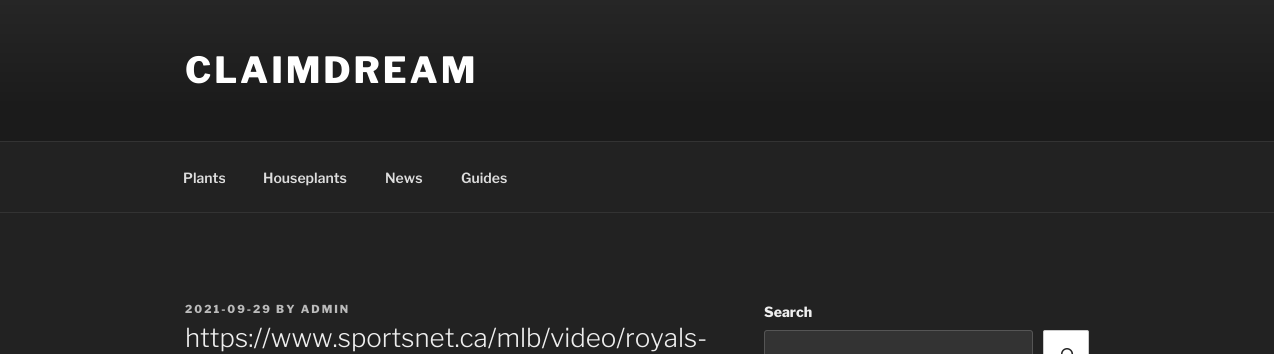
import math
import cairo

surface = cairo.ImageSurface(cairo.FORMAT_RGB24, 1274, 354)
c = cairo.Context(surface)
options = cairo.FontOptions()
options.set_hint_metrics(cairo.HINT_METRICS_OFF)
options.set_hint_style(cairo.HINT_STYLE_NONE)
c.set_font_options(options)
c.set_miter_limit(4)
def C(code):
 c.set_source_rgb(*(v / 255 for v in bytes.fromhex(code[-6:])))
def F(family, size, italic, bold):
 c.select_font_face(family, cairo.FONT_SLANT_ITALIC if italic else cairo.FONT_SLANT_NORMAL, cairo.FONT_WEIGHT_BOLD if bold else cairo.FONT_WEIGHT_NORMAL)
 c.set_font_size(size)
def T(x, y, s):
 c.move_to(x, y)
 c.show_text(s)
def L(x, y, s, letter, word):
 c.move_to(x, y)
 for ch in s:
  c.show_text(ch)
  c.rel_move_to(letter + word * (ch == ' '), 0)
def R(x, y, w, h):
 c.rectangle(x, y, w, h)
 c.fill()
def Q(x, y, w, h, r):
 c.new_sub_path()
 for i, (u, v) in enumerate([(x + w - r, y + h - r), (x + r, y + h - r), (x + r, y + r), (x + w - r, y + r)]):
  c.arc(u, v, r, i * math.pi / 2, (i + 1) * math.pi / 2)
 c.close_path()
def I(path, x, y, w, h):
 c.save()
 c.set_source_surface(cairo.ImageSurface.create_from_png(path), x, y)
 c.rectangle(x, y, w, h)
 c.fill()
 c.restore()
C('222222')
c.paint()
gradient = cairo.LinearGradient(637,0,637,141)
gradient.add_color_stop_rgba(0,0.149,0.149,0.149,1)
gradient.add_color_stop_rgba(.75,0.106,0.106,0.106,1)
gradient.add_color_stop_rgba(1,0.106,0.106,0.106,1)
c.set_source(gradient)
R(0,0,1274,141)
F('Libre Franklin Thin',36,0,0)
C('ffffff')
L(185,83,'CLAIMDREAM',2.9,0)
C('333333')
R(0,141,1274,1)
R(0,212,1274,1)
F('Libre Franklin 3 Thin',14,0,0)
C('dddddd')
T(183,183,'Plants')
T(263,183,'Houseplants')
T(385,183,'News')
T(461,183,'Guides')
F('Libre Franklin Thin',11,0,0)
C('bbbbbb')
L(185,313,'2021-09-29 BY ADMIN',2,0)
F('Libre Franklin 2 Thin',26,0,0)
C('eeeeee')
T(185,347,'https://www.sportsnet.ca/mlb/video/royals-')
F('Libre Franklin Thin',14,0,0)
T(764,317,'Search')
C('333333')
Q(764.5,330.5,268,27,2.5)
c.fill_preserve()
C('555555')
c.set_line_width(1)
c.stroke()
C('ffffff')
Q(1043.5,330.5,45,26,1.5)
c.fill_preserve()
C('cccccc')
c.stroke()
I('1.png',1061,348,13,6)
surface.write_to_png('o.png')
